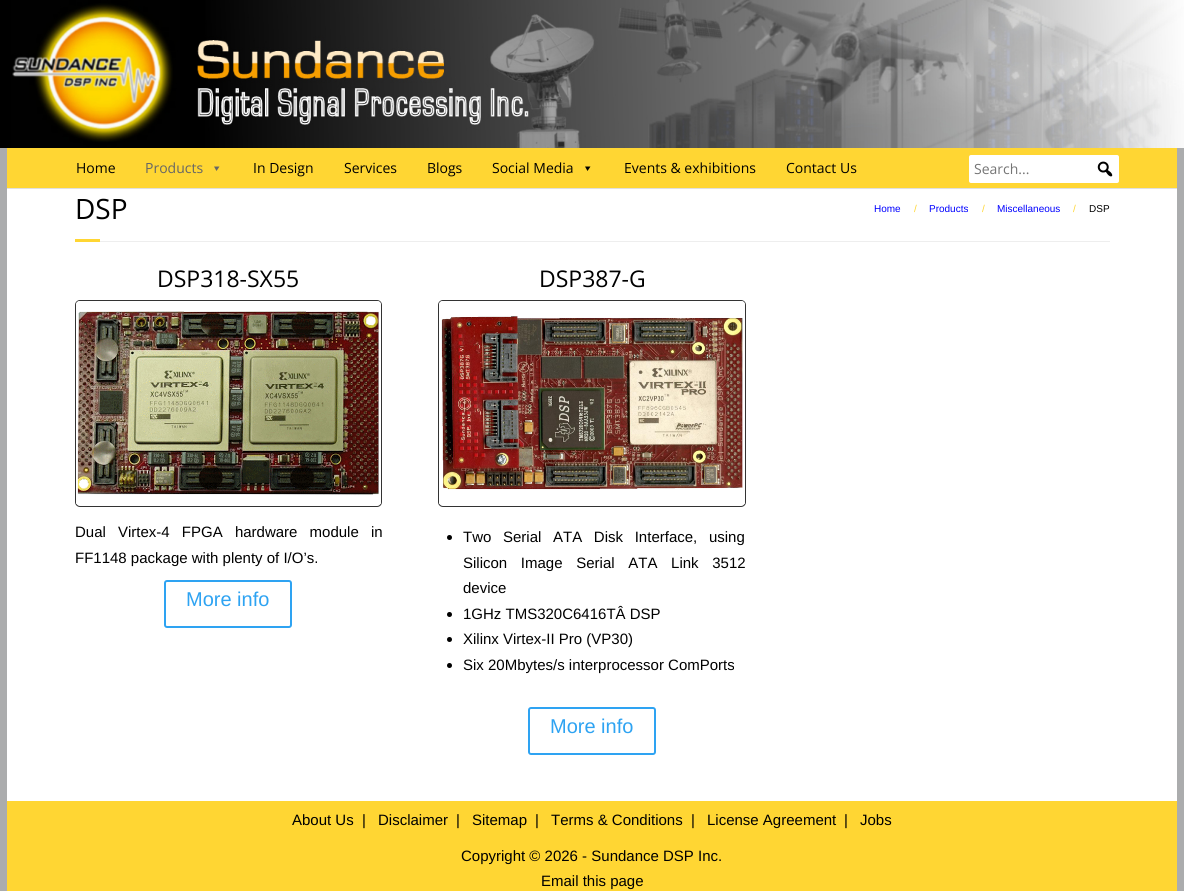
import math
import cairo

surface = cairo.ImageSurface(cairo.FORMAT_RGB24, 1184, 891)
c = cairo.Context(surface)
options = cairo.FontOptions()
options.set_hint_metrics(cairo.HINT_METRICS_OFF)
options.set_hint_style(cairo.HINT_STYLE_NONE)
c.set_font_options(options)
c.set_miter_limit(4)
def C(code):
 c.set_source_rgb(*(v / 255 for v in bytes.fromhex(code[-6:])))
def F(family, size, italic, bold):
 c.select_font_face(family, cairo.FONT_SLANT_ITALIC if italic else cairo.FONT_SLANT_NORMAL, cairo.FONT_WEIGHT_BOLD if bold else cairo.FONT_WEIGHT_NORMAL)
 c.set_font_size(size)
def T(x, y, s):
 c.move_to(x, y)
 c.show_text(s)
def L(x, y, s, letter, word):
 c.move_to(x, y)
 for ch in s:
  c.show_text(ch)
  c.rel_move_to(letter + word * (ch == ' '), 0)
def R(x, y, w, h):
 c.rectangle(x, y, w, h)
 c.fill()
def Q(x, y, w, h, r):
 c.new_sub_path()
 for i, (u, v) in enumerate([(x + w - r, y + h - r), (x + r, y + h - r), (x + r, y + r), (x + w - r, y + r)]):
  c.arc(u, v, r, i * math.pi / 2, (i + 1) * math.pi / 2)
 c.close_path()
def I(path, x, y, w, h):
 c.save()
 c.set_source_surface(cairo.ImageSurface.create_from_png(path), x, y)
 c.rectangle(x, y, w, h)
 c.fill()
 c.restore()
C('abacad')
c.paint()
I('1.png',0,0,1184,148)
C('ffffff')
R(7,189,1170,612)
C('ffd633')
R(7,148,1170,40)
F('Open Sans',14,0,0)
C('000000')
T(76,173,'Home')
C('666666')
T(145,173,'Products')
c.new_path()
c.move_to(219.5,166.5)
c.line_to(216.5,171)
c.line_to(214,166.5)
c.close_path()
c.fill()
C('000000')
T(253,173,'In Design')
T(344,173,'Services')
T(427,173,'Blogs')
T(492,173,'Social Media')
c.new_path()
c.move_to(590.5,166.5)
c.line_to(587.5,171)
c.line_to(585,166.5)
c.close_path()
c.fill()
T(624,173,'Events & exhibitions')
T(786,173,'Contact Us')
C('ffffff')
Q(969,155,150,28,2)
c.fill()
C('757575')
T(974,174,'Search...')
I('2.png',1097,161,16,16)
C('e0e0e0')
R(7,188,1170,1)
F('Open Sans',28,0,0)
C('000000')
T(75,219,'DSP')
F('Liberation Sans',10,0,0)
C('0000ff')
T(874,212,'Home')
C('ffd633')
T(914,212,'/')
C('0000ff')
T(929,212,'Products')
C('ffd633')
T(982,212,'/')
C('0000ff')
T(997,212,'Miscellaneous')
C('ffd633')
T(1073,212,'/')
C('000000')
T(1089,212,'DSP')
C('ffd633')
R(75,239,25,3)
C('eeeeee')
R(100,241,1010,1)
F('Open Sans',23,0,0)
C('000000')
T(157,287,'DSP318-SX55')
Q(75.5,300.5,306,206,4.5)
C('333333')
c.set_line_width(1)
c.stroke()
I('3.png',76,301,305,203)
F('Liberation Sans',15,0,0)
C('000000')
L(75,537,'Dual Virtex-4 FPGA hardware module in',0,8)
T(75,563,'FF1148 package with plenty of I/O’s.')
Q(165,581,126,46,2)
C('2ea3f2')
c.set_line_width(2)
c.stroke()
F('Liberation Sans',20,0,0)
T(186,606,'More info')
F('Open Sans',23,0,0)
C('000000')
T(539,287,'DSP387-G')
Q(438.5,300.5,307,206,4.5)
C('333333')
c.set_line_width(1)
c.stroke()
I('4.png',439,301,306,203)
C('000000')
c.arc(449.5,537.5,2.5,0,2 * math.pi)
c.fill()
F('Liberation Sans',15,0,0)
L(463,542,'Two Serial ATA Disk Interface, using',0,7.5)
L(463,568,'Silicon Image Serial ATA Link 3512',0,9.5)
T(463,593,'device')
c.new_path()
c.arc(449.5,614.5,2.5,0,2 * math.pi)
c.fill()
T(463,619,'1GHz TMS320C6416TÂ DSP')
c.new_path()
c.arc(449.5,639.5,2.5,0,2 * math.pi)
c.fill()
T(463,644,'Xilinx Virtex-II Pro (VP30)')
c.new_path()
c.arc(449.5,665.5,2.5,0,2 * math.pi)
c.fill()
T(463,670,'Six 20Mbytes/s interprocessor ComPorts')
Q(529,708,126,46,2)
C('2ea3f2')
c.set_line_width(2)
c.stroke()
F('Liberation Sans',20,0,0)
T(550,733,'More info')
C('ffd633')
R(7,801,1170,90)
F('Liberation Sans',15,0,0)
C('000000')
T(292,825,'About Us')
T(362,825,'|')
T(378,825,'Disclaimer')
T(456,825,'|')
T(472,825,'Sitemap')
T(535,825,'|')
T(551,825,'Terms & Conditions')
T(691,825,'|')
T(707,825,'License Agreement')
T(844,825,'|')
T(860,825,'Jobs')
T(461,861,'Copyright © 2026 - Sundance DSP Inc.')
T(541,886,'Email this page')
surface.write_to_png('o.png')
